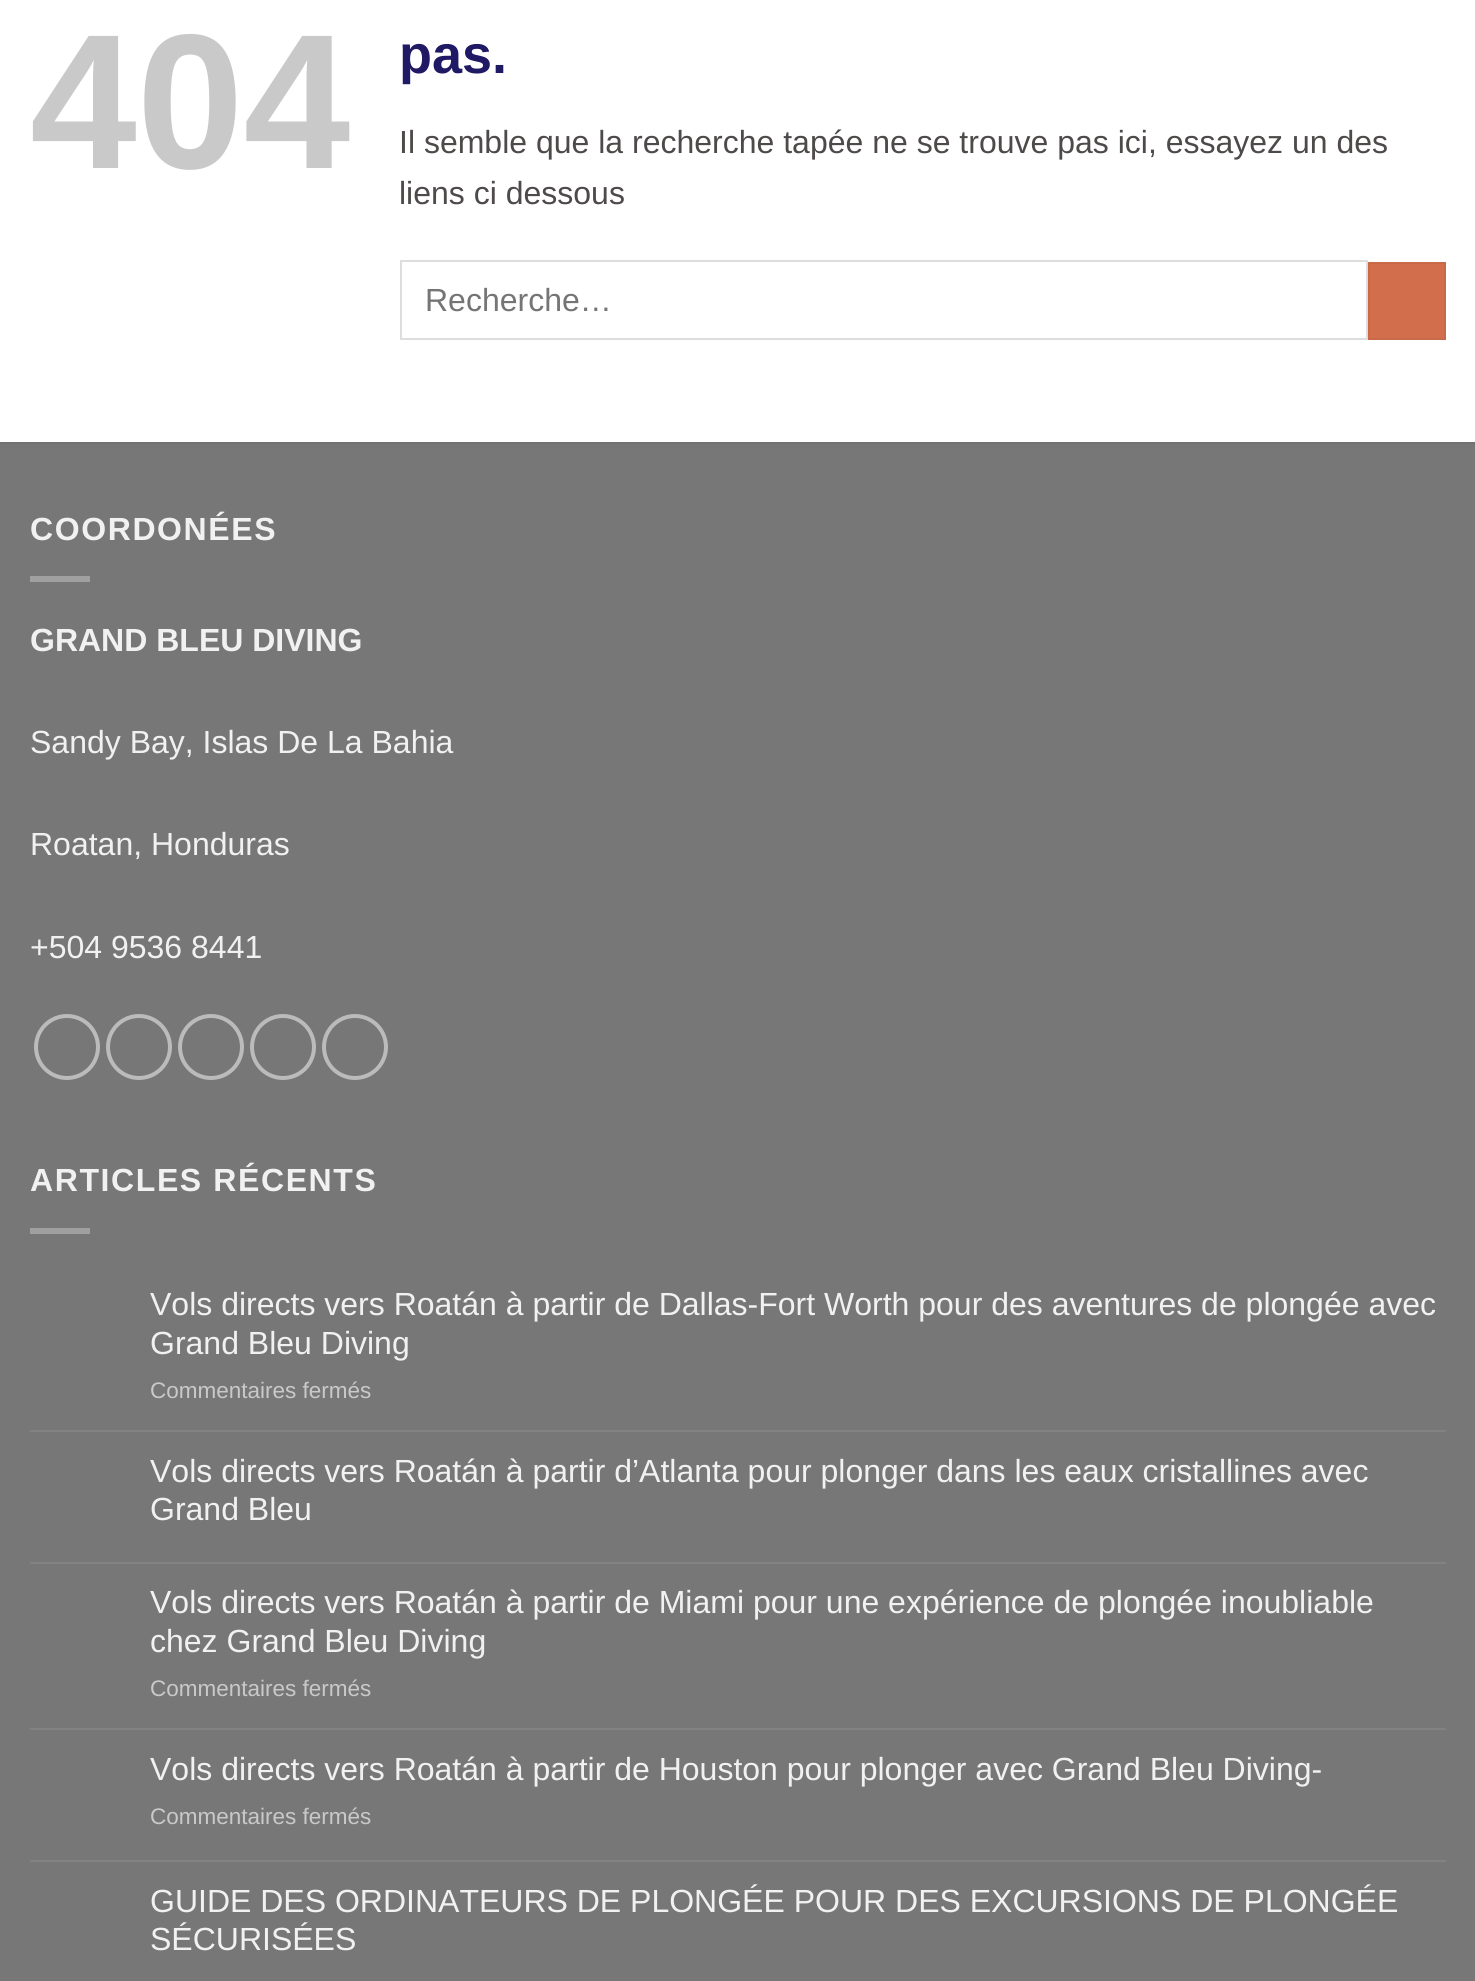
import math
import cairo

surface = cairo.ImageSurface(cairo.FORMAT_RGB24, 1475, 1981)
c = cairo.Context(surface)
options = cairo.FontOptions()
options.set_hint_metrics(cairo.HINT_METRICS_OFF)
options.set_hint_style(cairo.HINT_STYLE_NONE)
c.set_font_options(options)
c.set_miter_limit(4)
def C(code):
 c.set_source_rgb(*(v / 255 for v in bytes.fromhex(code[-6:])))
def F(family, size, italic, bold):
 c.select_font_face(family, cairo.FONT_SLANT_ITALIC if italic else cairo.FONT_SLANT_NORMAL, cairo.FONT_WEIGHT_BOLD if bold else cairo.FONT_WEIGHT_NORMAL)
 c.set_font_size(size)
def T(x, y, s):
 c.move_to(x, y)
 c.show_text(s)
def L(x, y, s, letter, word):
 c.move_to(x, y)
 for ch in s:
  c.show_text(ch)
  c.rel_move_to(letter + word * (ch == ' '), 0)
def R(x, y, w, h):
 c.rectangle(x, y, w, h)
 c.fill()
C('ffffff')
c.paint()
F('Liberation Sans',192,0,1)
C('cac9c9')
T(30,168,'404')
F('Liberation Sans',54,0,1)
C('201963')
T(399,73,'pas.')
F('Liberation Sans',32,0,0)
C('4e4a4a')
T(399,153,'Il semble que la recherche tapée ne se trouve pas ici, essayez un des')
T(399,204,'liens ci dessous')
c.rectangle(401,261,966,78)
C('dddddd')
c.stroke()
C('757575')
T(425,311,'Recherche…')
C('d26e4b')
c.rectangle(1369,263,76,76)
c.fill_preserve()
C('c86947')
c.stroke()
C('777777')
R(0,444,1475,1537)
C('717171')
R(0,442,1475,2)
F('Liberation Sans',32,0,1)
C('f1f1f1')
L(30,540,'COORDONÉES',1.6,0)
C('a0a0a0')
R(30,576,60,6)
C('f1f1f1')
T(30,651,'GRAND BLEU DIVING')
F('Liberation Sans',32,0,0)
T(30,753,'Sandy Bay, Islas De La Bahia')
T(30,855,'Roatan, Honduras')
T(30,958,'+504 9536 8441')
c.new_path()
c.arc(67,1047,31,0,2 * math.pi)
C('bbbbbb')
c.set_line_width(4)
c.stroke()
c.arc(139,1047,31,0,2 * math.pi)
c.stroke()
c.arc(211,1047,31,0,2 * math.pi)
c.stroke()
c.arc(283,1047,31,0,2 * math.pi)
c.stroke()
c.arc(355,1047,31,0,2 * math.pi)
c.stroke()
F('Liberation Sans',32,0,1)
C('f1f1f1')
L(30,1191,'ARTICLES RÉCENTS',1.6,0)
C('a0a0a0')
R(30,1228,60,6)
F('Liberation Sans',32,0,0)
C('f1f1f1')
T(150,1315,'Vols directs vers Roatán à partir de Dallas-Fort Worth pour des aventures de plongée avec')
T(150,1354,'Grand Bleu Diving')
F('Liberation Sans',22.5,0,0)
C('cac9c9')
T(150,1398,'Commentaires fermés')
C('828282')
R(30,1430,1416,2)
F('Liberation Sans',32,0,0)
C('f1f1f1')
T(150,1482,'Vols directs vers Roatán à partir d’Atlanta pour plonger dans les eaux cristallines avec')
T(150,1520,'Grand Bleu')
C('828282')
R(30,1562,1416,2)
C('f1f1f1')
T(150,1613,'Vols directs vers Roatán à partir de Miami pour une expérience de plongée inoubliable')
T(150,1652,'chez Grand Bleu Diving')
F('Liberation Sans',22.5,0,0)
C('cac9c9')
T(150,1696,'Commentaires fermés')
C('828282')
R(30,1728,1416,2)
F('Liberation Sans',32,0,0)
C('f1f1f1')
T(150,1780,'Vols directs vers Roatán à partir de Houston pour plonger avec Grand Bleu Diving-')
F('Liberation Sans',22.5,0,0)
C('cac9c9')
T(150,1824,'Commentaires fermés')
C('828282')
R(30,1860,1416,2)
F('Liberation Sans',32,0,0)
C('f1f1f1')
T(150,1912,'GUIDE DES ORDINATEURS DE PLONGÉE POUR DES EXCURSIONS DE PLONGÉE')
T(150,1950,'SÉCURISÉES')
surface.write_to_png('o.png')
